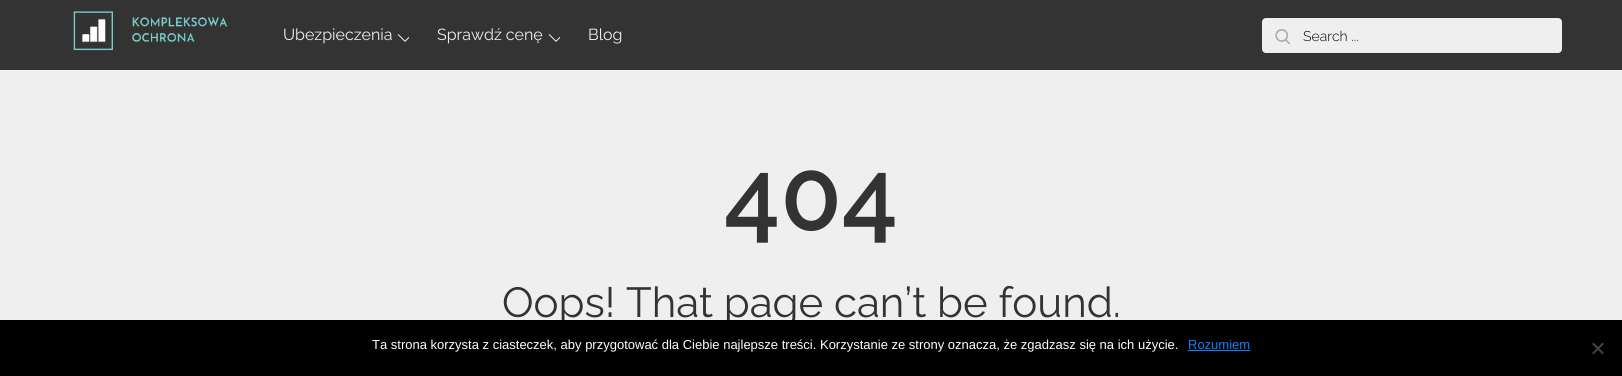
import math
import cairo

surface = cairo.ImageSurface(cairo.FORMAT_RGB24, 1622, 376)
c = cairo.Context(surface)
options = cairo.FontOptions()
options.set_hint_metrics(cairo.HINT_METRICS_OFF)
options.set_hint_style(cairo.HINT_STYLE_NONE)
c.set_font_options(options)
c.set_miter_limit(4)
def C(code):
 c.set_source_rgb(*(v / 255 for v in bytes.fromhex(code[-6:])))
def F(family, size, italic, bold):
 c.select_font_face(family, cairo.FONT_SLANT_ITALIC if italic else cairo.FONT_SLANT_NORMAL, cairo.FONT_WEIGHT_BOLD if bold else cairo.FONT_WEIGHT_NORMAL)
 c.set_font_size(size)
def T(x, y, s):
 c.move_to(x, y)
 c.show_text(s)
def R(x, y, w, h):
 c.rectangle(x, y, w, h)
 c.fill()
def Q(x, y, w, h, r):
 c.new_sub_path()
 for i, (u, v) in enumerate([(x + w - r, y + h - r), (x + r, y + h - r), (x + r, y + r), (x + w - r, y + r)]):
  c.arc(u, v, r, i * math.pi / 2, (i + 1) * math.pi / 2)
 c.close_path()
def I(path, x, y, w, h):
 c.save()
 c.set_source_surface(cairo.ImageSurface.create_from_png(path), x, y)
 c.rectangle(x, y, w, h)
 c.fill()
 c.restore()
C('efefef')
c.paint()
C('333333')
R(0,0,1622,70)
I('1.png',73,11,155,40)
F('Raleway',16,0,0)
C('eeeeee')
T(283,40,'Ubezpieczenia')
I('2.png',397,34,12,8)
T(437,40,'Sprawdź cenę')
I('2.png',548,34,12,8)
T(588,40,'Blog')
C('efefef')
Q(1262.5,18.5,299,34,3.5)
c.fill_preserve()
c.set_line_width(1)
c.stroke()
I('3.png',1275,29,15,15)
F('Raleway Light',14,0,0)
C('000000')
T(1303,41,'Search ...')
F('Raleway SemiBold',100,0,0)
C('333333')
T(724,230,'404')
F('Raleway',42,0,0)
T(502,317,'Oops! That page can’t be found.')
C('000000')
R(0,320,1622,56)
F('Liberation Sans',13,0,0)
C('ffffff')
T(372,349,'Ta strona korzysta z ciasteczek, aby przygotować dla Ciebie najlepsze treści. Korzystanie ze strony oznacza, że zgadzasz się na ich użycie.')
C('117eff')
T(1188,349,'Rozumiem')
R(1188,350,62,1)
C('404040')
c.new_path()
c.move_to(1602.5,342.5)
c.line_to(1604,344)
c.line_to(1593.5,354.5)
c.line_to(1592,353)
c.close_path()
c.fill()
c.new_path()
c.move_to(1592,344)
c.line_to(1593.5,342.5)
c.line_to(1604,353)
c.line_to(1602.5,354.5)
c.close_path()
c.fill()
surface.write_to_png('o.png')
